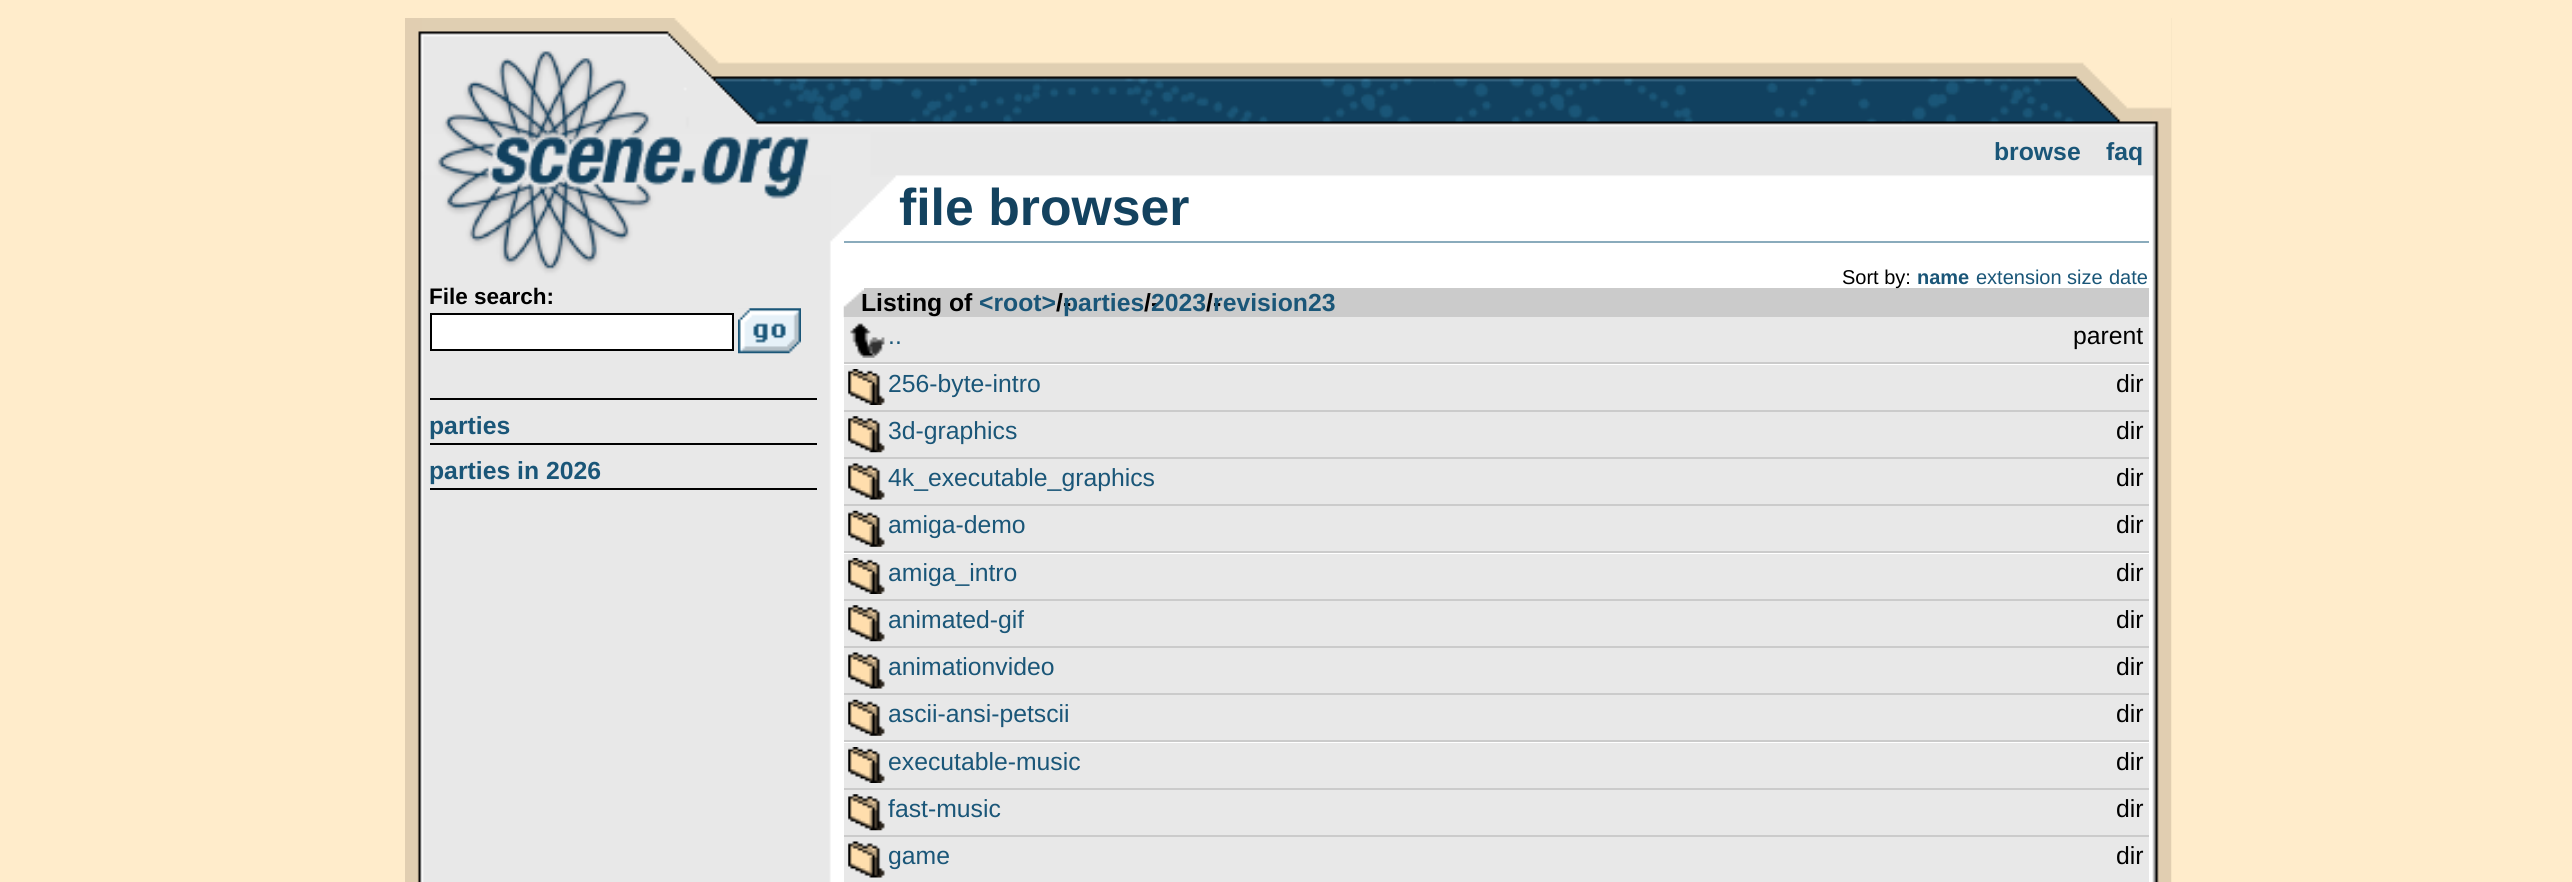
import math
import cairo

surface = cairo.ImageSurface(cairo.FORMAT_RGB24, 2572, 882)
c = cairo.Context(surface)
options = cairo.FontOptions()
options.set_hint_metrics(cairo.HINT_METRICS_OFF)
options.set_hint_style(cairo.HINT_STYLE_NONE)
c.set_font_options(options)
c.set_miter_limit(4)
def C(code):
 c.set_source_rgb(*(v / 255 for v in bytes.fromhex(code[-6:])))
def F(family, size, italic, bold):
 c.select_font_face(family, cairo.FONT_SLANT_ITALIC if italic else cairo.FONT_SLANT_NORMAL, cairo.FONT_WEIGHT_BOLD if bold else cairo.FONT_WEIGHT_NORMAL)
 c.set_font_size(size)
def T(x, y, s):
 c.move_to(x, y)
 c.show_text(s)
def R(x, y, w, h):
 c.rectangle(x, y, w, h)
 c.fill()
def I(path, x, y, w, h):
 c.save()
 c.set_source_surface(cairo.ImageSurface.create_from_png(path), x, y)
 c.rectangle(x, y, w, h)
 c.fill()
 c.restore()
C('ffeccb')
c.paint()
I('1.png',405,18,1767,864)
I('2.png',417,18,1755,272)
F('Liberation Sans',24.75,0,1)
C('1a5678')
T(1994,160,'browse')
T(2106,160,'faq')
F('Liberation Sans',22.5,0,1)
C('000000')
T(429,304,'File search:')
C('ffffff')
c.rectangle(431,314,302,36)
c.fill_preserve()
C('000000')
c.stroke()
I('3.png',738,308,63,46)
R(430,398,387,2)
F('Liberation Sans',24.75,0,1)
C('1a5678')
T(429,434,'parties')
C('000000')
R(430,443,387,2)
R(430,488,387,2)
C('1a5678')
T(429,479,'parties in 2026')
C('8aabbc')
R(844,241,1305,2)
F('Liberation Sans',51.75,0,1)
C('13425f')
T(899,225,'file browser')
C('cbcbcb')
R(864,288,1285,29)
F('Liberation Sans',20,0,0)
C('000000')
T(1842,284,'Sort by:')
F('Liberation Sans',20,0,1)
C('1a5678')
T(1917,284,'name')
F('Liberation Sans',20,0,0)
T(1976,284,'extension')
T(2067,284,'size')
T(2109,284,'date')
I('4.png',843,288,21,30)
F('Liberation Sans',24.75,0,1)
C('000000')
T(861,311,'Listing of')
T(1056,311,'/-')
C('1a5678')
T(1063,311,'parties')
C('000000')
T(1144,311,'/-')
C('1a5678')
T(979,311,'<root>')
T(1151,311,'2023')
C('000000')
T(1206,311,'/-')
C('1a5678')
T(1213,311,'revision23')
C('cbcbcb')
R(844,362,1305,2)
C('e8e8e8')
R(844,317,1305,45)
I('5.png',850,323,35,35)
F('Liberation Sans',24.75,0,0)
C('1a5678')
T(888,344,'..')
C('000000')
T(2073,344,'parent')
C('cbcbcb')
R(844,410,1305,2)
C('e8e8e8')
R(844,365,1305,45)
I('6.png',848,369,37,36)
C('1a5678')
T(888,392,'256-byte-intro')
C('000000')
T(2116,392,'dir')
C('cbcbcb')
R(844,457,1305,2)
C('e8e8e8')
R(844,412,1305,45)
I('7.png',848,416,37,37)
C('1a5678')
T(888,439,'3d-graphics')
C('000000')
T(2116,439,'dir')
C('cbcbcb')
R(844,504,1305,2)
C('e8e8e8')
R(844,459,1305,45)
I('8.png',848,463,37,37)
C('1a5678')
T(888,486,'4k_executable_graphics')
C('000000')
T(2116,486,'dir')
C('cbcbcb')
R(844,551,1305,2)
C('e8e8e8')
R(844,506,1305,45)
I('9.png',848,510,37,37)
C('1a5678')
T(888,533,'amiga-demo')
C('000000')
T(2116,533,'dir')
C('cbcbcb')
R(844,599,1305,2)
C('e8e8e8')
R(844,554,1305,45)
I('10.png',848,558,37,36)
C('1a5678')
T(888,581,'amiga_intro')
C('000000')
T(2116,581,'dir')
C('cbcbcb')
R(844,646,1305,2)
C('e8e8e8')
R(844,601,1305,45)
I('7.png',848,605,37,37)
C('1a5678')
T(888,628,'animated-gif')
C('000000')
T(2116,628,'dir')
C('cbcbcb')
R(844,693,1305,2)
C('e8e8e8')
R(844,648,1305,45)
I('8.png',848,652,37,37)
C('1a5678')
T(888,675,'animationvideo')
C('000000')
T(2116,675,'dir')
C('cbcbcb')
R(844,740,1305,2)
C('e8e8e8')
R(844,695,1305,45)
I('9.png',848,699,37,37)
C('1a5678')
T(888,722,'ascii-ansi-petscii')
C('000000')
T(2116,722,'dir')
C('cbcbcb')
R(844,788,1305,2)
C('e8e8e8')
R(844,743,1305,45)
I('6.png',848,747,37,36)
C('1a5678')
T(888,770,'executable-music')
C('000000')
T(2116,770,'dir')
C('cbcbcb')
R(844,835,1305,2)
C('e8e8e8')
R(844,790,1305,45)
I('7.png',848,794,37,37)
C('1a5678')
T(888,817,'fast-music')
C('000000')
T(2116,817,'dir')
C('e8e8e8')
R(844,837,1305,45)
I('8.png',848,841,37,37)
C('1a5678')
T(888,864,'game')
C('000000')
T(2116,864,'dir')
surface.write_to_png('o.png')
